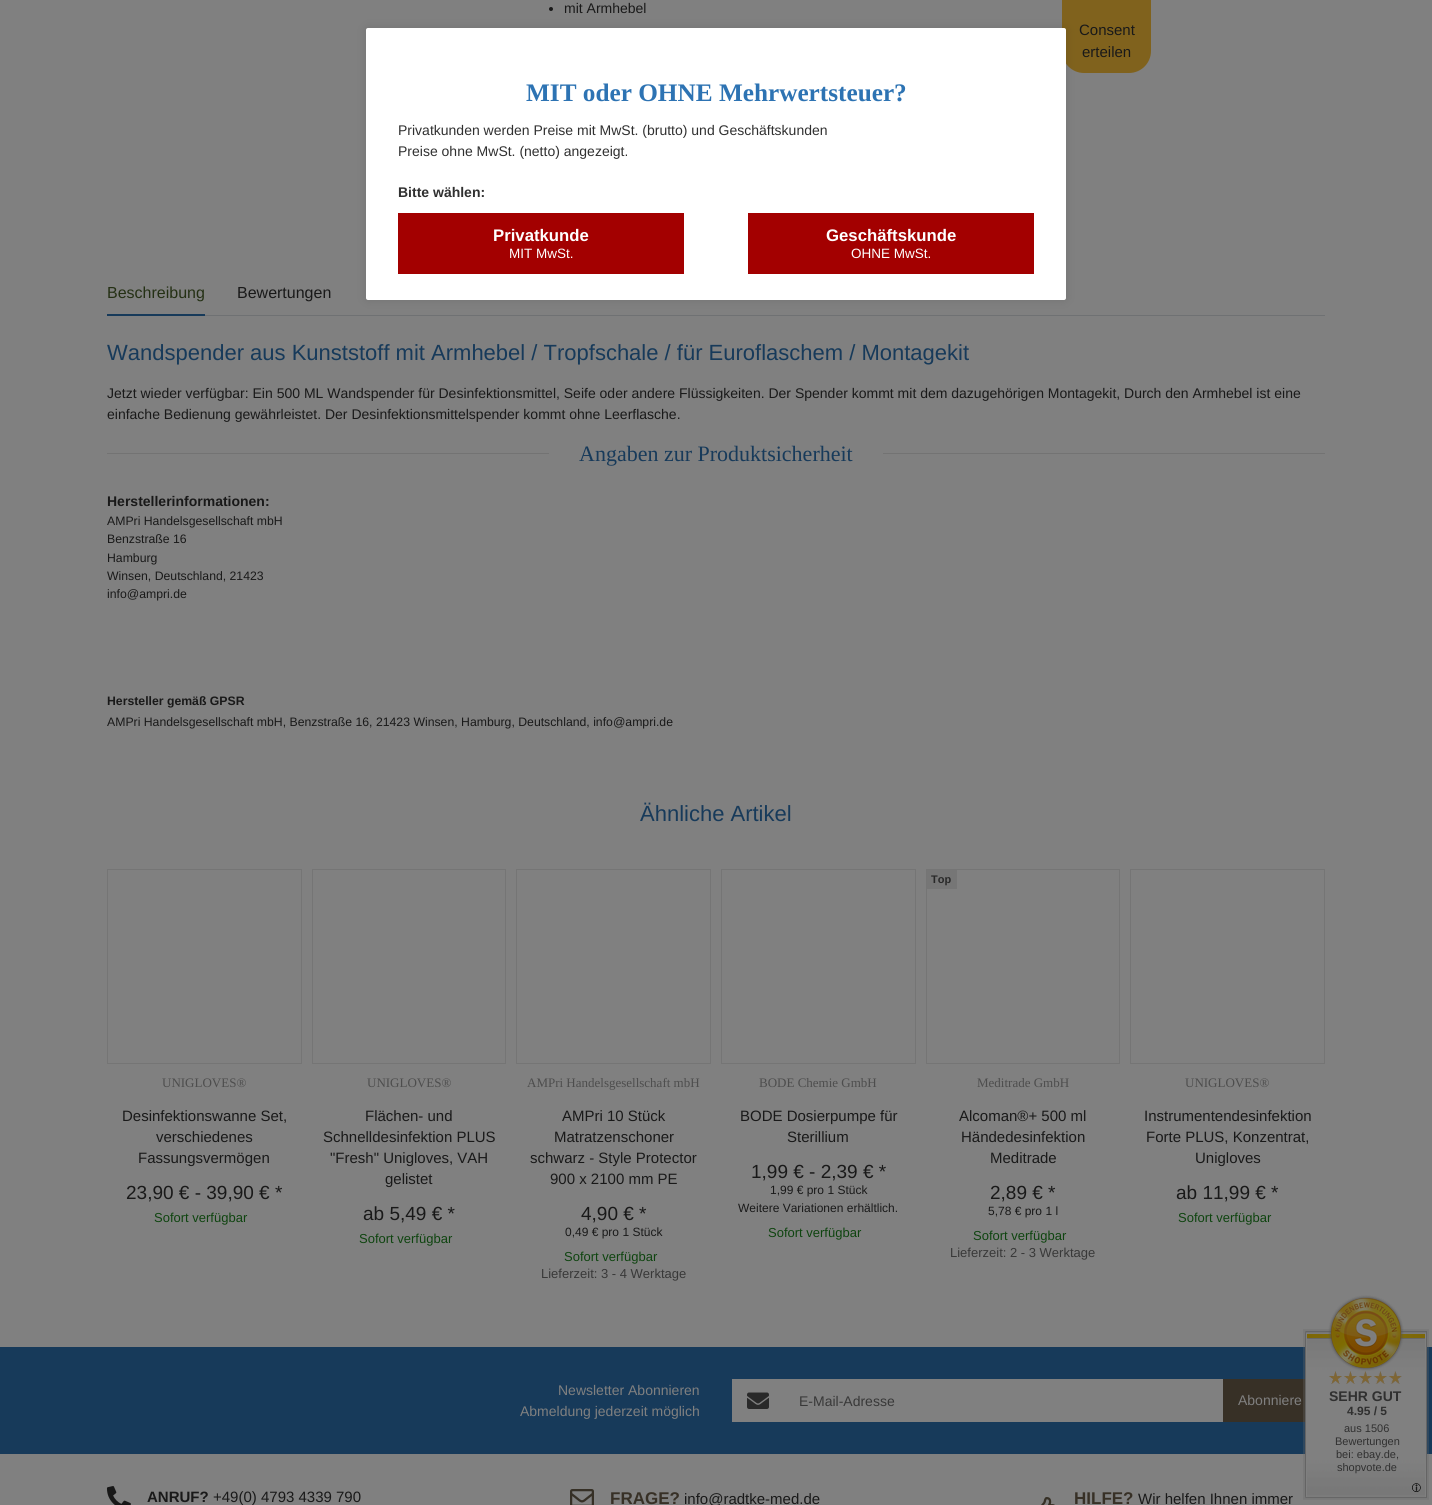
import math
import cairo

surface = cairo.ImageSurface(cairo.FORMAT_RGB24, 1432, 1505)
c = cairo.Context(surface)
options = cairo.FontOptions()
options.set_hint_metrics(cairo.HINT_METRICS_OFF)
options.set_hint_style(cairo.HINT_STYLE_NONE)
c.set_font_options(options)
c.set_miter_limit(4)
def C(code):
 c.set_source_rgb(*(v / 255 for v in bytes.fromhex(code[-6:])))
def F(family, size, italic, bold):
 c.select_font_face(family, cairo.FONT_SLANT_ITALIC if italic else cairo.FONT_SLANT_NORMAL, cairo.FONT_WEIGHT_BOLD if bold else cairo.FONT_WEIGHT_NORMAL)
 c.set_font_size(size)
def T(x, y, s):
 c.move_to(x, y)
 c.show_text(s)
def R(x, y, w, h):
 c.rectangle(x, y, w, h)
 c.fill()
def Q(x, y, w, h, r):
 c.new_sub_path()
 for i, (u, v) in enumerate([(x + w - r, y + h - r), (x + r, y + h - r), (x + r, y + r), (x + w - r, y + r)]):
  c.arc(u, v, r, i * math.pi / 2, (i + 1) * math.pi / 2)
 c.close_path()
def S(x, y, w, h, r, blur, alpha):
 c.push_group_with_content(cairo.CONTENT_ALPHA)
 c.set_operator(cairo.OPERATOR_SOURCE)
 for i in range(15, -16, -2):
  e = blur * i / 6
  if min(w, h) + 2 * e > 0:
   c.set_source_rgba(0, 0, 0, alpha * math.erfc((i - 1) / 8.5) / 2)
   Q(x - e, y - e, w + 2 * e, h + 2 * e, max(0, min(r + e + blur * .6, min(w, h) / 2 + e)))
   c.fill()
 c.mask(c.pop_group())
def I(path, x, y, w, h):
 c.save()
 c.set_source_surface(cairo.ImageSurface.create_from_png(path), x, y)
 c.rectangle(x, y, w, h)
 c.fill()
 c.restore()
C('808080')
c.paint()
C('191919')
c.arc(551,9,2,0,2 * math.pi)
c.fill()
F('Liberation Sans',14,0,0)
T(564,13,'mit Armhebel')
C('80621d')
Q(1062,-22,89,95,22)
c.fill()
F('Liberation Sans',15,0,0)
C('191919')
T(1079,35,'Consent')
T(1082,57,'erteilen')
C('6f7173')
R(205,315,1120,1)
F('Liberation Sans',16,0,0)
C('243014')
T(107,298,'Beschreibung')
C('173a5a')
R(107,314,98,2)
C('191919')
T(237,298,'Bewertungen')
F('Liberation Sans',22,0,0)
C('173a5a')
T(107,360,'Wandspender aus Kunststoff mit Armhebel / Tropfschale / für Euroflaschem / Montagekit')
F('Liberation Sans',14,0,0)
C('191919')
T(107,398,'Jetzt wieder verfügbar: Ein 500 ML Wandspender für Desinfektionsmittel, Seife oder andere Flüssigkeiten. Der Spender kommt mit dem dazugehörigen Montagekit, Durch den Armhebel ist eine')
T(107,419,'einfache Bedienung gewährleistet. Der Desinfektionsmittelspender kommt ohne Leerflasche.')
C('737373')
R(107,453,442,1)
F('Liberation Serif',22,0,0)
C('173a5a')
T(579,461,'Angaben zur Produktsicherheit')
C('737373')
R(883,453,442,1)
F('Liberation Sans',14,0,1)
C('191919')
T(107,506,'Herstellerinformationen:')
F('Liberation Sans',12.25,0,0)
T(107,525,'AMPri Handelsgesellschaft mbH')
T(107,543,'Benzstraße 16')
T(107,562,'Hamburg')
T(107,580,'Winsen, Deutschland, 21423')
T(107,598,'info@ampri.de')
F('Liberation Sans',12.25,0,1)
T(107,705,'Hersteller gemäß GPSR')
F('Liberation Sans',12.25,0,0)
T(107,726,'AMPri Handelsgesellschaft mbH, Benzstraße 16, 21423 Winsen, Hamburg, Deutschland, info@ampri.de')
F('Liberation Sans',22,0,0)
C('173a5a')
T(640,821,'Ähnliche Artikel')
c.rectangle(107.5,869.5,194,194)
C('757575')
c.set_line_width(1)
c.stroke()
F('Liberation Serif',13,0,0)
C('4d4d4d')
T(162,1087,'UNIGLOVES®')
F('Liberation Sans',15,0,0)
C('191919')
T(122,1121,'Desinfektionswanne Set,')
T(156,1142,'verschiedenes')
T(138,1163,'Fassungsvermögen')
F('Liberation Sans',19,0,0)
T(126,1199,'23,90 € - 39,90 € *')
F('Liberation Sans',13,0,0)
C('0e440f')
T(154,1222,'Sofort verfügbar')
c.rectangle(312.5,869.5,193,194)
C('757575')
c.stroke()
F('Liberation Serif',13,0,0)
C('4d4d4d')
T(367,1087,'UNIGLOVES®')
F('Liberation Sans',15,0,0)
C('191919')
T(365,1121,'Flächen- und')
T(323,1142,'Schnelldesinfektion PLUS')
T(330,1163,'"Fresh" Unigloves, VAH')
T(385,1184,'gelistet')
F('Liberation Sans',19,0,0)
T(363,1220,'ab 5,49 € *')
F('Liberation Sans',13,0,0)
C('0e440f')
T(359,1243,'Sofort verfügbar')
c.rectangle(516.5,869.5,194,194)
C('757575')
c.stroke()
F('Liberation Serif',13,0,0)
C('4d4d4d')
T(527,1087,'AMPri Handelsgesellschaft mbH')
F('Liberation Sans',15,0,0)
C('191919')
T(562,1121,'AMPri 10 Stück')
T(554,1142,'Matratzenschoner')
T(530,1163,'schwarz - Style Protector')
T(550,1184,'900 x 2100 mm PE')
F('Liberation Sans',19,0,0)
T(581,1220,'4,90 € *')
F('Liberation Sans',12,0,0)
T(565,1236,'0,49 € pro 1 Stück')
F('Liberation Sans',13,0,0)
C('0e440f')
T(564,1261,'Sofort verfügbar')
C('383838')
T(541,1278,'Lieferzeit: 3 - 4 Werktage')
c.rectangle(721.5,869.5,194,194)
C('757575')
c.stroke()
F('Liberation Serif',13,0,0)
C('4d4d4d')
T(759,1087,'BODE Chemie GmbH')
F('Liberation Sans',15,0,0)
C('191919')
T(740,1121,'BODE Dosierpumpe für')
T(787,1142,'Sterillium')
F('Liberation Sans',19,0,0)
T(751,1178,'1,99 € - 2,39 € *')
F('Liberation Sans',12,0,0)
T(770,1194,'1,99 € pro 1 Stück')
T(738,1212,'Weitere Variationen erhältlich.')
F('Liberation Sans',13,0,0)
C('0e440f')
T(768,1237,'Sofort verfügbar')
c.rectangle(926.5,869.5,193,194)
C('757575')
c.stroke()
C('767676')
R(927,870,30,19)
F('Liberation Sans',11,0,1)
C('292929')
T(931,883,'Top')
F('Liberation Serif',13,0,0)
C('4d4d4d')
T(977,1087,'Meditrade GmbH')
F('Liberation Sans',15,0,0)
C('191919')
T(959,1121,'Alcoman®+ 500 ml')
T(961,1142,'Händedesinfektion')
T(990,1163,'Meditrade')
F('Liberation Sans',19,0,0)
T(990,1199,'2,89 € *')
F('Liberation Sans',12,0,0)
T(988,1215,'5,78 € pro 1 l')
F('Liberation Sans',13,0,0)
C('0e440f')
T(973,1240,'Sofort verfügbar')
C('383838')
T(950,1257,'Lieferzeit: 2 - 3 Werktage')
c.rectangle(1130.5,869.5,194,194)
C('757575')
c.stroke()
F('Liberation Serif',13,0,0)
C('4d4d4d')
T(1185,1087,'UNIGLOVES®')
F('Liberation Sans',15,0,0)
C('191919')
T(1144,1121,'Instrumentendesinfektion')
T(1146,1142,'Forte PLUS, Konzentrat,')
T(1195,1163,'Unigloves')
F('Liberation Sans',19,0,0)
T(1176,1199,'ab 11,99 € *')
F('Liberation Sans',13,0,0)
C('0e440f')
T(1178,1222,'Sofort verfügbar')
C('000000')
S(366,28,700,272,2,5,.1)
C('ffffff')
Q(366,28,700,272,2)
c.fill()
F('Liberation Serif',25.25,0,1)
C('2d73b3')
T(526,101,'MIT oder OHNE Mehrwertsteuer?')
F('Liberation Sans',14,0,0)
C('303030')
T(398,135,'Privatkunden werden Preise mit MwSt. (brutto) und Geschäftskunden')
T(398,156,'Preise ohne MwSt. (netto) angezeigt.')
F('Liberation Sans',14,0,1)
T(398,197,'Bitte wählen:')
C('a30000')
R(398,213,286,61)
F('Liberation Sans',16.75,0,1)
C('ffffff')
T(493,241,'Privatkunde')
F('Liberation Sans',13.5,0,0)
T(509,258,'MIT MwSt.')
C('a30000')
R(748,213,286,61)
F('Liberation Sans',16.75,0,1)
C('ffffff')
T(826,241,'Geschäftskunde')
F('Liberation Sans',13.5,0,0)
T(851,258,'OHNE MwSt.')
C('173a5a')
R(0,1347,1432,107)
F('Liberation Sans',14,0,0)
C('808080')
T(558,1395,'Newsletter Abonnieren')
T(520,1416,'Abmeldung jederzeit möglich')
R(732,1379,491,43)
I('1.png',747,1392,22,17)
C('373026')
R(1223,1379,82,43)
C('808080')
T(1238,1405,'Abonniere')
C('383838')
T(799,1406,'E-Mail-Adresse')
I('2.png',106,1486,25,19)
F('Liberation Sans',15,0,1)
C('191919')
T(147,1502,'ANRUF?')
F('Liberation Sans',15,0,0)
T(213,1502,'+49(0) 4793 4339 790')
I('3.png',570,1489,24,16)
F('Liberation Sans',17,0,1)
C('373026')
T(610,1504,'FRAGE?')
F('Liberation Sans',15,0,0)
C('191919')
T(684,1504,'info@radtke-med.de')
I('4.png',1041,1497,14,8)
F('Liberation Sans',17,0,1)
C('373026')
T(1074,1504,'HILFE?')
F('Liberation Sans',15,0,0)
C('191919')
T(1138,1504,'Wir helfen Ihnen immer')
I('5.png',1303,1295,126,205)
I('6.png',1329,1371,73,13)
F('Liberation Sans',14,0,1)
C('303030')
T(1329,1401,'SEHR GUT')
F('Liberation Sans',12,0,1)
T(1347,1415,'4.95 / 5')
F('Liberation Sans',11,0,0)
T(1344,1432,'aus 1506')
T(1335,1445,'Bewertungen')
T(1336,1458,'bei: ebay.de,')
T(1337,1471,'shopvote.de')
surface.write_to_png('o.png')
